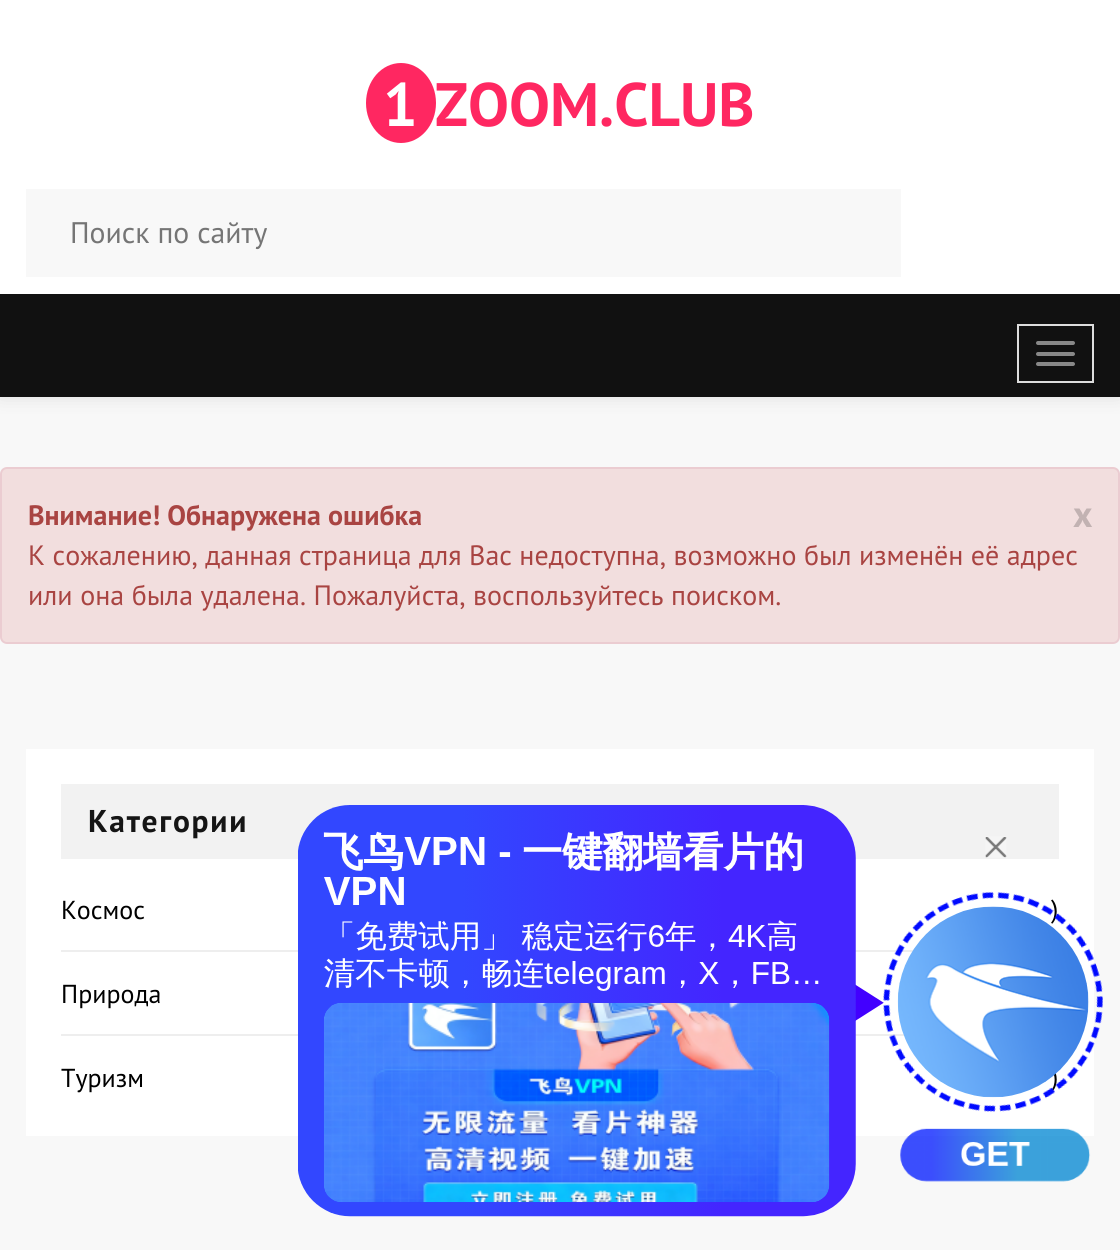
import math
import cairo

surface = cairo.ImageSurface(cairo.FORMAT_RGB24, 1120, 1250)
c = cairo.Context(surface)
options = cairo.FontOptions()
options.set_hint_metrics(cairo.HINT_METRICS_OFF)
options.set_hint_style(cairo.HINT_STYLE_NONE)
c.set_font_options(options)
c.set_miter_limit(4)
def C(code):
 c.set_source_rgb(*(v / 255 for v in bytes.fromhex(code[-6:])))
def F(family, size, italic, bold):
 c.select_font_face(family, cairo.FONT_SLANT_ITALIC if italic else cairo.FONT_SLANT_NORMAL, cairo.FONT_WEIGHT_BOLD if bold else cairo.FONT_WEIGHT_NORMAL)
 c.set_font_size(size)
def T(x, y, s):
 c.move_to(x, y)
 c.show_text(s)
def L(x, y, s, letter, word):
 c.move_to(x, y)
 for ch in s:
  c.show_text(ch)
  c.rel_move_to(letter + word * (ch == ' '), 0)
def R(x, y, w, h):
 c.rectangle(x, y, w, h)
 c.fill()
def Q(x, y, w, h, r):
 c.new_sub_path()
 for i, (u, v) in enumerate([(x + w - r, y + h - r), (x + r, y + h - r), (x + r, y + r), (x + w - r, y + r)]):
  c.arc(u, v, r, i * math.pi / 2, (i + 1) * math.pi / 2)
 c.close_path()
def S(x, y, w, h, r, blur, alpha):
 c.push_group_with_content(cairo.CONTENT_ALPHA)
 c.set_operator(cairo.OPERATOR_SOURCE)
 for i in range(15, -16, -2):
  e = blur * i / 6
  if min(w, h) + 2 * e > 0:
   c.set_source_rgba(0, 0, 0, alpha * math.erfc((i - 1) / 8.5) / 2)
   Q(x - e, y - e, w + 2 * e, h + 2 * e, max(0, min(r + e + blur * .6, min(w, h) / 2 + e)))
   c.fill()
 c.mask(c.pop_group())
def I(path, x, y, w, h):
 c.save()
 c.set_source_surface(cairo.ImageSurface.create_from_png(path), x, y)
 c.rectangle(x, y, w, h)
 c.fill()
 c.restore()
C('f8f8f8')
c.paint()
C('000000')
S(0,0,1120,397,0,9.5,.1)
C('ffffff')
R(0,0,1120,294)
C('ff2761')
c.new_path()
c.move_to(401,63)
c.curve_to(420.5,63,436,81,436,103)
c.curve_to(436,125,420.5,143,401,143)
c.curve_to(381.5,143,366,125,366,103)
c.curve_to(366,81,381.5,63,401,63)
c.close_path()
c.fill()
F('PT Sans',61.25,0,1)
C('ffffff')
T(383,126,'1')
C('ff2761')
T(435,126,'ZOOM.CLUB')
C('f8f8f8')
R(26,189,875,88)
F('PT Sans',29.75,0,0)
C('757575')
T(70,243,'Поиск по сайту')
C('111111')
R(0,294,1120,103)
c.rectangle(1018,325,75,57)
C('dddddd')
c.stroke()
C('888888')
Q(1036,341,39,4,2)
c.fill()
Q(1036,352,39,4,2)
c.fill()
Q(1036,362,39,4,2)
c.fill()
C('f2dede')
Q(1,468,1118,175,6)
c.fill_preserve()
C('ebccd1')
c.stroke()
F('PT Sans',28,0,1)
C('a94442')
T(28,525,'Внимание! Обнаружена ошибка')
F('PT Sans',37,0,1)
C('c2b2b2')
T(1073,527,'x')
F('PT Sans',28,0,0)
C('a94442')
T(28,565,'К сожалению, данная страница для Вас недоступна, возможно был изменён её адрес')
T(28,605,'или она была удалена. Пожалуйста, воспользуйтесь поиском.')
C('ffffff')
R(26,749,1068,387)
C('f2f2f2')
R(61,784,998,75)
F('PT Sans',31.5,0,1)
C('151515')
L(88,832,'Категории',1.75,0)
C('eeeeee')
R(61,950,853,2)
F('PT Sans',26,0,0)
C('000000')
T(61,919,'Космос')
T(1051,918,')')
C('eeeeee')
R(61,1034,844,2)
C('000000')
T(61,1003,'Природа')
T(61,1087,'Туризм')
T(1051,1086,')')
I('1.png',298,805,805,412)
surface.write_to_png('o.png')
